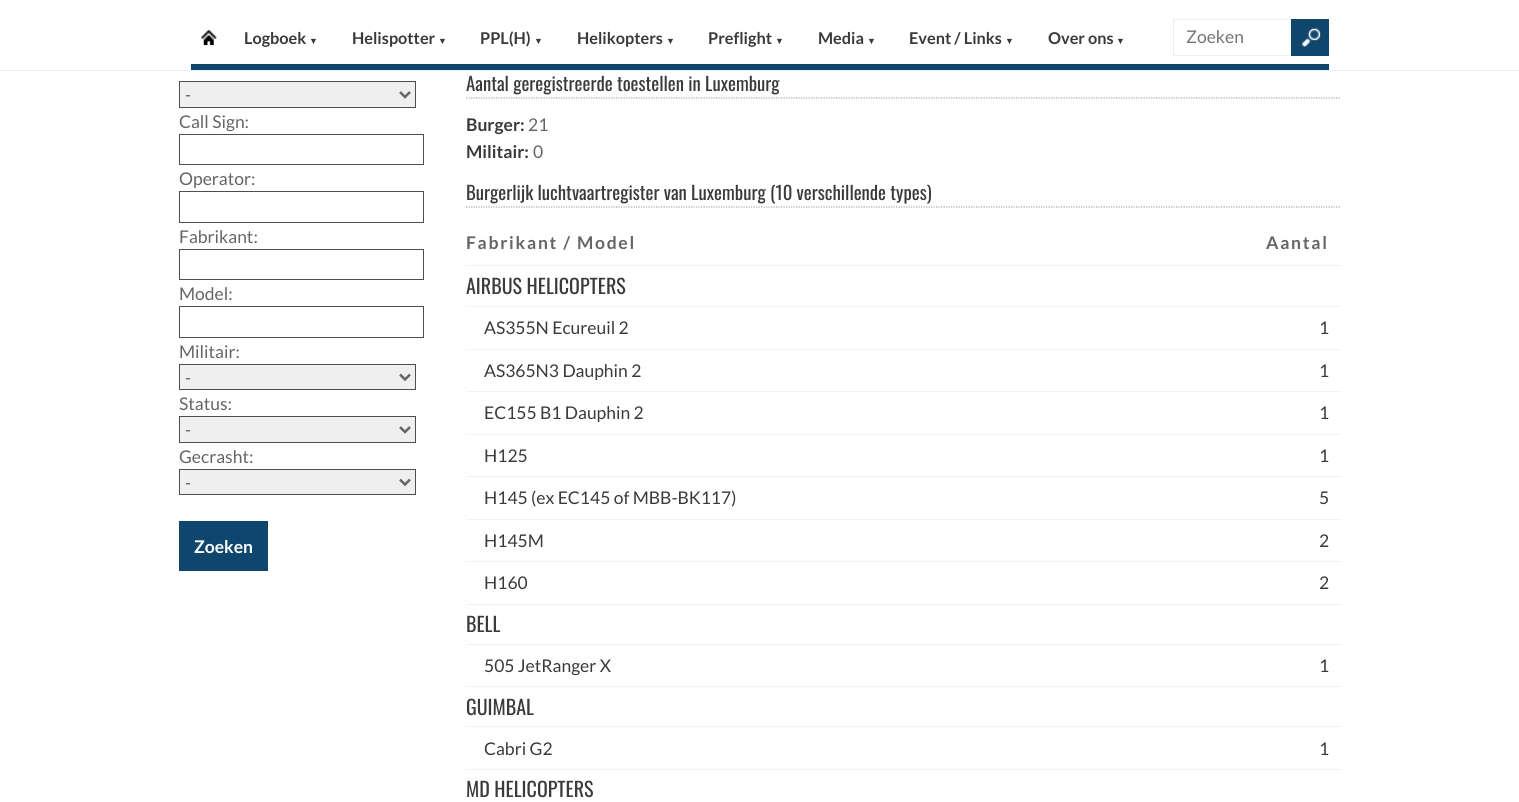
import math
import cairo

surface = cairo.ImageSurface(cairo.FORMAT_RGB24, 1519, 802)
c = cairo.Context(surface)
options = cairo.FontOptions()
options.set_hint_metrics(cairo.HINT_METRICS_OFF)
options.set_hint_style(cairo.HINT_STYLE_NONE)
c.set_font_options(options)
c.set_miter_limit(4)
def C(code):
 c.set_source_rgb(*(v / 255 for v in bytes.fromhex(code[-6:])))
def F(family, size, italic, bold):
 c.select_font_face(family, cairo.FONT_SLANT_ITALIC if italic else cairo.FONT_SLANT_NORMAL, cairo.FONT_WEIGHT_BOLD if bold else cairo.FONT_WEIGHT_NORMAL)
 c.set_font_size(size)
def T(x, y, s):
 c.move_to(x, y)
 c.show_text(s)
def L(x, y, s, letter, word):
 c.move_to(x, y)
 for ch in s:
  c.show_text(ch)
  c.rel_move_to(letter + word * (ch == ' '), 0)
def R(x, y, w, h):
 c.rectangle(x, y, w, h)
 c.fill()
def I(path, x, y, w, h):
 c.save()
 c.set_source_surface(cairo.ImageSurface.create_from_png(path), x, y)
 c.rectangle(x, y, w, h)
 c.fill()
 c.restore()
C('ffffff')
c.paint()
C('eeeeee')
R(0,70,1519,1)
C('0f466d')
R(191,64,1138,6)
I('1.png',201,29,16,17)
F('Lato',16.25,0,1)
C('3a3a3a')
T(244,44,'Logboek')
F('Liberation Sans',9,0,1)
T(309,44,'▼')
F('Lato',16.25,0,1)
T(352,44,'Helispotter')
F('Liberation Sans',9,0,1)
T(438,44,'▼')
F('Lato',16.25,0,1)
T(480,44,'PPL(H)')
F('Liberation Sans',9,0,1)
T(534,44,'▼')
F('Lato',16.25,0,1)
T(577,44,'Helikopters')
F('Liberation Sans',9,0,1)
T(666,44,'▼')
F('Lato',16.25,0,1)
T(708,44,'Preflight')
F('Liberation Sans',9,0,1)
T(775,44,'▼')
F('Lato',16.25,0,1)
T(818,44,'Media')
F('Liberation Sans',9,0,1)
T(867,44,'▼')
F('Lato',16.25,0,1)
T(909,44,'Event / Links')
F('Liberation Sans',9,0,1)
T(1005,44,'▼')
F('Lato',16.25,0,1)
T(1048,44,'Over ons')
F('Liberation Sans',9,0,1)
T(1116,44,'▼')
C('eeeeee')
R(1173,19,118,1)
R(1173,55,118,1)
R(1173,19,1,37)
F('Lato',17.5,0,0)
C('757575')
T(1186,43,'Zoeken')
C('0f466d')
R(1291,19,38,37)
I('2.png',1301,28,20,20)
C('efefef')
c.rectangle(179.5,81.5,236,26)
c.fill_preserve()
C('4e4e4e')
c.set_line_width(1)
c.stroke()
c.new_path()
c.move_to(400,92)
c.line_to(405,97)
c.line_to(410,92)
C('656565')
c.set_line_width(2.5)
c.stroke()
T(185,101,'-')
T(179,128,'Call Sign:')
c.rectangle(179.5,134.5,244,30)
C('4e4e4e')
c.set_line_width(1)
c.stroke()
C('656565')
T(179,185,'Operator:')
c.rectangle(179.5,191.5,244,31)
C('4e4e4e')
c.stroke()
C('656565')
T(179,243,'Fabrikant:')
c.rectangle(179.5,249.5,244,30)
C('4e4e4e')
c.stroke()
C('656565')
T(179,300,'Model:')
c.rectangle(179.5,306.5,244,31)
C('4e4e4e')
c.stroke()
C('656565')
T(179,358,'Militair:')
C('efefef')
c.rectangle(179.5,364.5,236,25)
c.fill_preserve()
C('4e4e4e')
c.stroke()
c.new_path()
c.move_to(400,374.5)
c.line_to(405,379.5)
c.line_to(410,374.5)
C('656565')
c.set_line_width(2.5)
c.stroke()
T(185,384,'-')
T(179,410,'Status:')
C('efefef')
c.rectangle(179.5,416.5,236,26)
c.fill_preserve()
C('4e4e4e')
c.set_line_width(1)
c.stroke()
c.new_path()
c.move_to(400,427)
c.line_to(405,432)
c.line_to(410,427)
C('656565')
c.set_line_width(2.5)
c.stroke()
T(185,436,'-')
T(179,463,'Gecrasht:')
C('efefef')
c.rectangle(179.5,469.5,236,25)
c.fill_preserve()
C('4e4e4e')
c.set_line_width(1)
c.stroke()
c.new_path()
c.move_to(400,479.5)
c.line_to(405,484.5)
c.line_to(410,479.5)
C('656565')
c.set_line_width(2.5)
c.stroke()
T(185,489,'-')
C('0f466d')
R(179,521,89,50)
F('Lato',17.5,0,1)
C('ffffff')
T(194,553,'Zoeken')
c.new_path()
c.move_to(466,98)
c.line_to(1341,98)
C('aaaaaa')
c.set_line_width(1.2)
c.set_dash([1.25,1.25])
c.stroke()
F('Oswald',18.75,0,0)
C('3a3a3a')
T(466,91,'Aantal geregistreerde toestellen in Luxemburg')
F('Lato',17.5,0,1)
T(466,131,'Burger:')
F('Lato',17.5,0,0)
C('656565')
T(528,131,'21')
F('Lato',17.5,0,1)
C('3a3a3a')
T(466,158,'Militair:')
F('Lato',17.5,0,0)
C('656565')
T(533,158,'0')
c.new_path()
c.move_to(466,207)
c.line_to(1341,207)
C('aaaaaa')
c.stroke()
F('Oswald',18.75,0,0)
C('3a3a3a')
T(466,200,'Burgerlijk luchtvaartregister van Luxemburg (10 verschillende types)')
F('Lato',17.5,0,1)
C('656565')
L(466,249,'Fabrikant / Model',1.75,0)
L(1266,249,'Aantal',1.75,0)
C('f2f2f2')
R(466,265,875,1)
F('Oswald',20,0,0)
C('3a3a3a')
T(466,294,'AIRBUS HELICOPTERS')
F('Lato',17.5,0,0)
T(484,334,'AS355N Ecureuil 2')
C('f2f2f2')
R(466,306,875,1)
C('3a3a3a')
T(1319,334,'1')
T(484,377,'AS365N3 Dauphin 2')
C('f2f2f2')
R(466,349,875,1)
C('3a3a3a')
T(1319,377,'1')
T(484,419,'EC155 B1 Dauphin 2')
C('f2f2f2')
R(466,391,875,1)
C('3a3a3a')
T(1319,419,'1')
T(484,462,'H125')
C('f2f2f2')
R(466,434,875,1)
C('3a3a3a')
T(1319,462,'1')
T(484,504,'H145 (ex EC145 of MBB-BK117)')
C('f2f2f2')
R(466,476,875,1)
C('3a3a3a')
T(1319,504,'5')
T(484,547,'H145M')
C('f2f2f2')
R(466,519,875,1)
C('3a3a3a')
T(1319,547,'2')
T(484,589,'H160')
C('f2f2f2')
R(466,561,875,1)
C('3a3a3a')
T(1319,589,'2')
C('f2f2f2')
R(466,604,875,1)
F('Oswald',20,0,0)
C('3a3a3a')
T(466,632,'BELL')
F('Lato',17.5,0,0)
T(484,672,'505 JetRanger X')
C('f2f2f2')
R(466,644,875,1)
C('3a3a3a')
T(1319,672,'1')
C('f2f2f2')
R(466,686,875,1)
F('Oswald',20,0,0)
C('3a3a3a')
T(466,715,'GUIMBAL')
F('Lato',17.5,0,0)
T(484,755,'Cabri G2')
C('f2f2f2')
R(466,726,875,1)
C('3a3a3a')
T(1319,755,'1')
C('f2f2f2')
R(466,769,875,1)
F('Oswald',20,0,0)
C('3a3a3a')
T(466,797,'MD HELICOPTERS')
surface.write_to_png('o.png')
